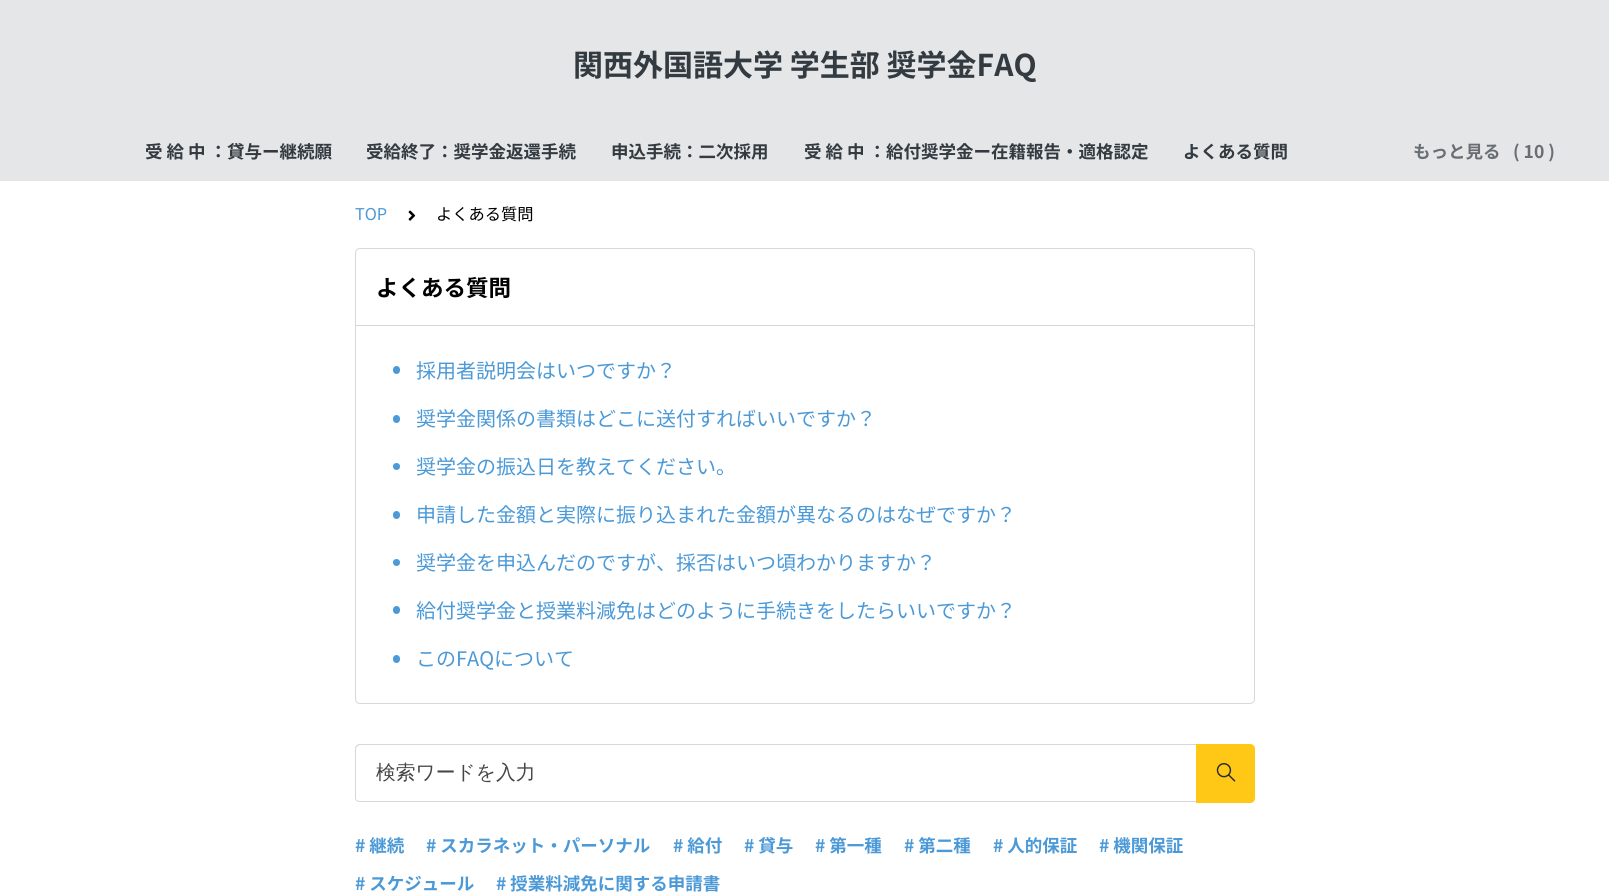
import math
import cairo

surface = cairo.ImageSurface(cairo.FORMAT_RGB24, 1609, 896)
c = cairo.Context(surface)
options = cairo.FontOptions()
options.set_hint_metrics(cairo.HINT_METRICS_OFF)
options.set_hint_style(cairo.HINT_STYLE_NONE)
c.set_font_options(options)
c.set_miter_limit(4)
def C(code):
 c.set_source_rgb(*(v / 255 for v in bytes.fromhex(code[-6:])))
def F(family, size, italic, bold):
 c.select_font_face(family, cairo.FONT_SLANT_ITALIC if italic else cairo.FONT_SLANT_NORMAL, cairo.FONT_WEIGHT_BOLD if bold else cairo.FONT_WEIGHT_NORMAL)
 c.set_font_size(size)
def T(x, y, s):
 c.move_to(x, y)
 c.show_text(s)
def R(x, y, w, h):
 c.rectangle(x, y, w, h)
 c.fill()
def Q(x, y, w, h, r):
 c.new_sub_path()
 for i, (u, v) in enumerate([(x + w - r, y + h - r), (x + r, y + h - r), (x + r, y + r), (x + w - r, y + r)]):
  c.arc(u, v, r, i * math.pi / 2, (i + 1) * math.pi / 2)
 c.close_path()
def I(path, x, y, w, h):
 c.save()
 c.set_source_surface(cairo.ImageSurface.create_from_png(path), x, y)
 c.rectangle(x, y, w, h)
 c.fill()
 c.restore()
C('ffffff')
c.paint()
C('e4e6e8')
R(0,0,1609,181)
F('Noto Sans JP',30,0,1)
C('333b41')
T(573,76,'関西外国語大学 学生部 奨学金FAQ')
F('Noto Sans JP',17.5,0,1)
T(145,158,'受 給 中 ：貸与ー継続願')
T(366,158,'受給終了：奨学金返還手続')
T(611,158,'申込手続：二次採用')
T(804,158,'受 給 中 ：給付奨学金ー在籍報告・適格認定')
T(1183,158,'よくある質問')
C('686e73')
T(1413,158,'もっと見る')
T(1513,158,'( 10 )')
F('Noto Sans JP',16.25,0,0)
C('4b99d7')
T(355,220,'TOP')
I('1.png',408,210,8,11)
C('000000')
T(436,220,'よくある質問')
Q(355.5,248.5,899,455,4.5)
C('d7d7d7')
c.set_line_width(1)
c.stroke()
R(356,325,898,1)
F('Noto Sans JP',22.5,0,1)
C('000000')
T(376,296,'よくある質問')
C('4b99d7')
Q(393,366,7,8,3.5)
c.fill()
F('Noto Sans JP',20,0,0)
T(416,378,'採用者説明会はいつですか？')
Q(393,415,7,8,3.5)
c.fill()
T(416,426,'奨学金関係の書類はどこに送付すればいいですか？')
c.new_path()
c.arc(396.5,466.5,3.5,0,2 * math.pi)
c.fill()
T(416,474,'奨学金の振込日を教えてください。')
Q(393,511,7,8,3.5)
c.fill()
T(416,522,'申請した金額と実際に振り込まれた金額が異なるのはなぜですか？')
c.new_path()
c.arc(396.5,562.5,3.5,0,2 * math.pi)
c.fill()
T(416,570,'奨学金を申込んだのですが、採否はいつ頃わかりますか？')
Q(393,606,7,8,3.5)
c.fill()
T(416,618,'給付奨学金と授業料減免はどのように手続きをしたらいいですか？')
Q(393,655,7,8,3.5)
c.fill()
T(416,666,'このFAQについて')
C('d7d7d7')
c.set_fill_rule(cairo.FILL_RULE_EVEN_ODD)
c.new_path()
c.move_to(360,744)
c.line_to(1196,744)
c.line_to(1196,802)
c.line_to(360,802)
c.curve_to(357,802,355,800,355,798)
c.line_to(355,749)
c.curve_to(355,746,357,744,360,744)
c.close_path()
c.move_to(360,745)
c.line_to(1196,745)
c.line_to(1196,801)
c.line_to(360,801)
c.curve_to(358,801,356,800,356,798)
c.line_to(356,749)
c.curve_to(356,747,358,745,360,745)
c.close_path()
c.fill()
F('WenQuanYi Zen Hei Medium',19.75,0,0)
C('464646')
T(376,779,'検索ワードを入力')
C('ffc817')
c.new_path()
c.move_to(1196,744)
c.line_to(1250,744)
c.curve_to(1253,744,1255,746,1255,749)
c.line_to(1255,798)
c.curve_to(1255,801,1253,803,1250,803)
c.line_to(1196,803)
c.close_path()
c.fill()
I('2.png',1216,763,20,19)
F('Noto Sans JP',17.5,0,1)
C('4b99d7')
T(355,852,'# 継続')
T(426,852,'# スカラネット・パーソナル')
T(673,852,'# 給付')
T(744,852,'# 貸与')
T(815,852,'# 第一種')
T(904,852,'# 第二種')
T(993,852,'# 人的保証')
T(1099,852,'# 機関保証')
T(355,890,'# スケジュール')
T(496,890,'# 授業料減免に関する申請書')
surface.write_to_png('o.png')
